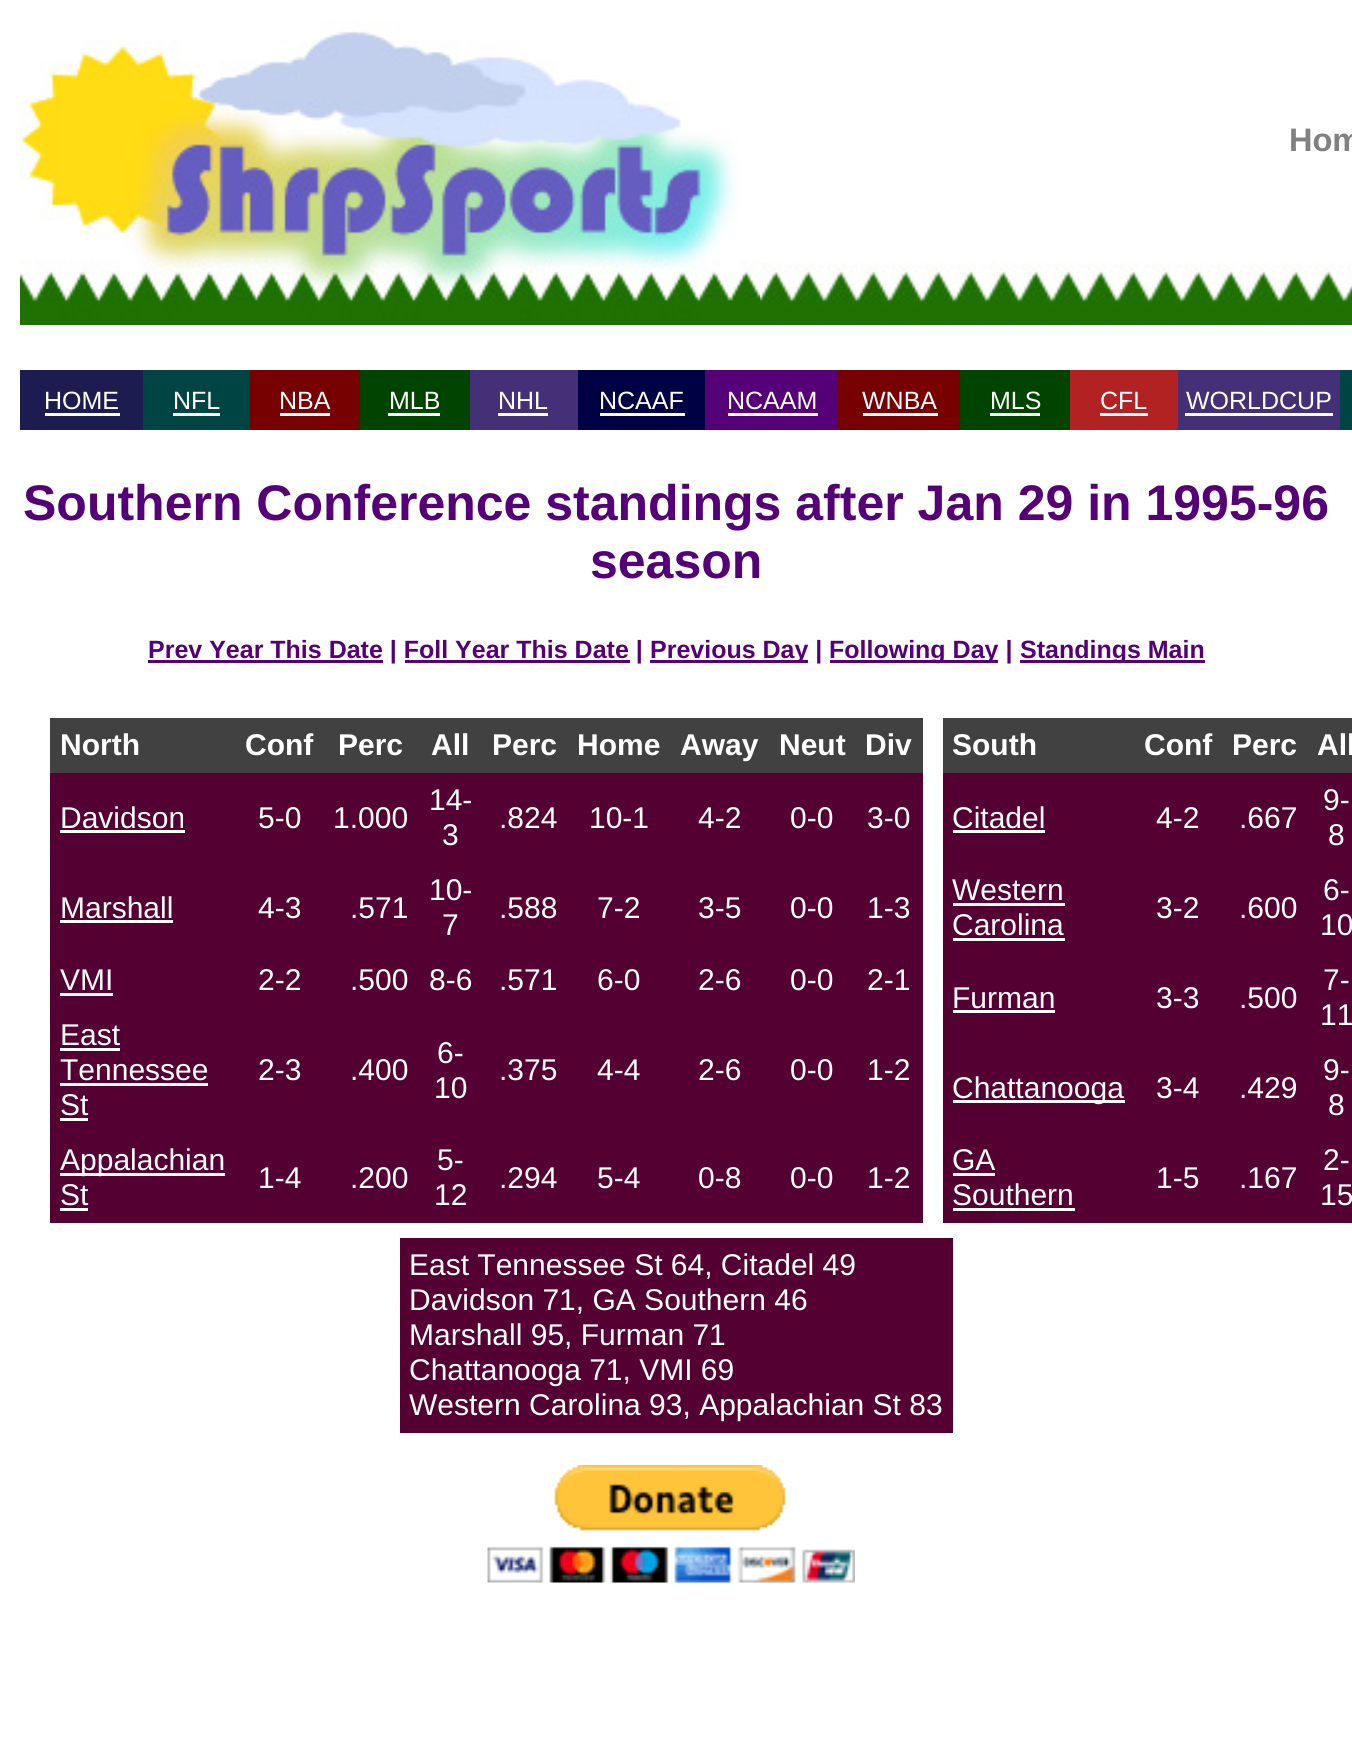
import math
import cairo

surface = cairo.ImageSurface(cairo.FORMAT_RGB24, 1352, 1743)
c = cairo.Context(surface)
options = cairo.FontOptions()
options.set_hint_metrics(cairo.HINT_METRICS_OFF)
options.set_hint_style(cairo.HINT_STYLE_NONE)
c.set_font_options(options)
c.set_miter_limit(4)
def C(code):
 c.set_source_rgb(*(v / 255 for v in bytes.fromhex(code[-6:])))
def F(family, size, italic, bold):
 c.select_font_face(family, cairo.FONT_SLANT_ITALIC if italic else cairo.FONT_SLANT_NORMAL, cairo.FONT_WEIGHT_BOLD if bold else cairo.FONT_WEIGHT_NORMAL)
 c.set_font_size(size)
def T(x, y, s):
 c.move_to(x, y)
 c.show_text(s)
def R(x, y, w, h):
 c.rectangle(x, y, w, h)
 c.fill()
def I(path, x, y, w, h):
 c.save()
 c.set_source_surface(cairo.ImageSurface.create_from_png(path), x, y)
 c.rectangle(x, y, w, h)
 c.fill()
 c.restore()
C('ffffff')
c.paint()
I('1.png',20,20,740,305)
F('Liberation Sans',32.5,0,1)
C('808080')
T(1289,151,'Hom')
I('2.png',760,262,592,63)
I('3.png',760,262,33,39)
C('1c1c51')
R(20,370,123,60)
F('Liberation Sans',25,0,0)
C('ffffff')
T(44,409,'HOME')
R(45,413,75,3)
C('004444')
R(143,370,107,60)
C('ffffff')
T(173,409,'NFL')
R(173,413,47,3)
C('770000')
R(250,370,110,60)
C('ffffff')
T(279,409,'NBA')
R(280,413,50,3)
C('004400')
R(360,370,110,60)
C('ffffff')
T(389,409,'MLB')
R(388,413,52,3)
C('443077')
R(470,370,108,60)
C('ffffff')
T(498,409,'NHL')
R(498,413,50,3)
C('000044')
R(578,370,127,60)
C('ffffff')
T(599,409,'NCAAF')
R(600,413,85,3)
C('550077')
R(705,370,133,60)
C('ffffff')
T(727,409,'NCAAM')
R(728,413,90,3)
C('770000')
R(838,370,122,60)
C('ffffff')
T(862,409,'WNBA')
R(863,413,75,3)
C('004400')
R(960,370,110,60)
C('ffffff')
T(990,409,'MLS')
R(990,413,50,3)
C('b22222')
R(1070,370,108,60)
C('ffffff')
T(1100,409,'CFL')
R(1100,413,48,3)
C('443077')
R(1178,370,162,60)
C('ffffff')
T(1186,409,'WORLDCUP')
R(1185,413,148,3)
C('004444')
R(1340,370,12,60)
F('Liberation Sans',50,0,1)
C('550077')
T(23,520,'Southern Conference standings after Jan 29 in 1995-96')
T(590,578,'season')
R(148,660,235,3)
F('Liberation Sans',25,0,1)
T(148,658,'Prev Year This Date | Foll Year This Date |')
R(650,660,158,3)
T(650,658,'Previous Day |')
R(830,660,168,3)
T(829,658,'Following Day |')
R(1020,660,185,3)
T(1020,658,'Standings Main')
R(405,660,225,3)
C('414141')
R(50,718,873,55)
F('Liberation Sans',30,0,1)
C('ffffff')
T(60,755,'North')
T(245,755,'Conf')
T(338,755,'Perc')
T(431,755,'All')
T(492,755,'Perc')
T(577,755,'Home')
T(680,755,'Away')
T(779,755,'Neut')
T(865,755,'Div')
C('550033')
R(50,773,873,450)
F('Liberation Sans',30,0,0)
C('ffffff')
T(60,828,'Davidson')
R(60,830,125,3)
T(258,828,'5-0')
T(333,828,'1.000')
T(429,810,'14-')
T(442,845,'3')
T(499,828,'.824')
T(589,828,'10-1')
T(698,828,'4-2')
T(790,828,'0-0')
T(867,828,'3-0')
T(60,918,'Marshall')
R(60,920,113,3)
T(258,918,'4-3')
T(350,918,'.571')
T(429,900,'10-')
T(442,935,'7')
T(499,918,'.588')
T(597,918,'7-2')
T(698,918,'3-5')
T(790,918,'0-0')
T(867,918,'1-3')
T(60,990,'VMI')
R(60,993,53,3)
T(258,990,'2-2')
T(350,990,'.500')
T(429,990,'8-6')
T(499,990,'.571')
T(597,990,'6-0')
T(698,990,'2-6')
T(790,990,'0-0')
T(867,990,'2-1')
T(60,1045,'East')
R(60,1048,60,3)
T(60,1080,'Tennessee')
R(60,1083,148,3)
T(60,1115,'St')
R(60,1118,28,3)
T(258,1080,'2-3')
T(350,1080,'.400')
T(437,1063,'6-')
T(434,1098,'10')
T(499,1080,'.375')
T(597,1080,'4-4')
T(698,1080,'2-6')
T(790,1080,'0-0')
T(867,1080,'1-2')
R(60,1173,165,3)
T(60,1170,'Appalachian')
T(60,1205,'St')
R(60,1208,28,3)
T(258,1188,'1-4')
T(350,1188,'.200')
T(437,1170,'5-')
T(434,1205,'12')
T(499,1188,'.294')
T(597,1188,'5-4')
T(698,1188,'0-8')
T(790,1188,'0-0')
T(867,1188,'1-2')
C('414141')
R(943,718,409,55)
F('Liberation Sans',30,0,1)
C('ffffff')
T(952,755,'South')
T(1144,755,'Conf')
T(1232,755,'Perc')
T(1317,755,'All')
C('550033')
R(943,773,409,450)
F('Liberation Sans',30,0,0)
C('ffffff')
T(952,828,'Citadel')
R(953,830,92,3)
T(1156,828,'4-2')
T(1239,828,'.667')
T(1323,810,'9-')
T(1328,845,'8')
T(952,900,'Western')
R(953,903,112,3)
T(952,935,'Carolina')
R(953,938,112,3)
T(1156,918,'3-2')
T(1239,918,'.600')
T(1323,900,'6-')
T(1320,935,'10')
T(952,1008,'Furman')
R(953,1010,102,3)
T(1156,1008,'3-3')
T(1239,1008,'.500')
T(1323,990,'7-')
T(1320,1025,'11')
R(953,1100,172,3)
T(952,1098,'Chattanooga')
T(1156,1098,'3-4')
T(1239,1098,'.429')
T(1323,1080,'9-')
T(1328,1115,'8')
T(952,1170,'GA')
R(953,1173,42,3)
T(952,1205,'Southern')
R(953,1208,122,3)
T(1156,1188,'1-5')
T(1239,1188,'.167')
T(1323,1170,'2-')
T(1320,1205,'15')
C('550033')
R(400,1238,553,195)
C('ffffff')
T(409,1275,'East Tennessee St 64, Citadel 49')
T(409,1310,'Davidson 71, GA Southern 46')
T(409,1345,'Marshall 95, Furman 71')
T(409,1380,'Chattanooga 71, VMI 69')
T(409,1415,'Western Carolina 93, Appalachian St 83')
I('4.png',487,1465,368,118)
surface.write_to_png('o.png')
